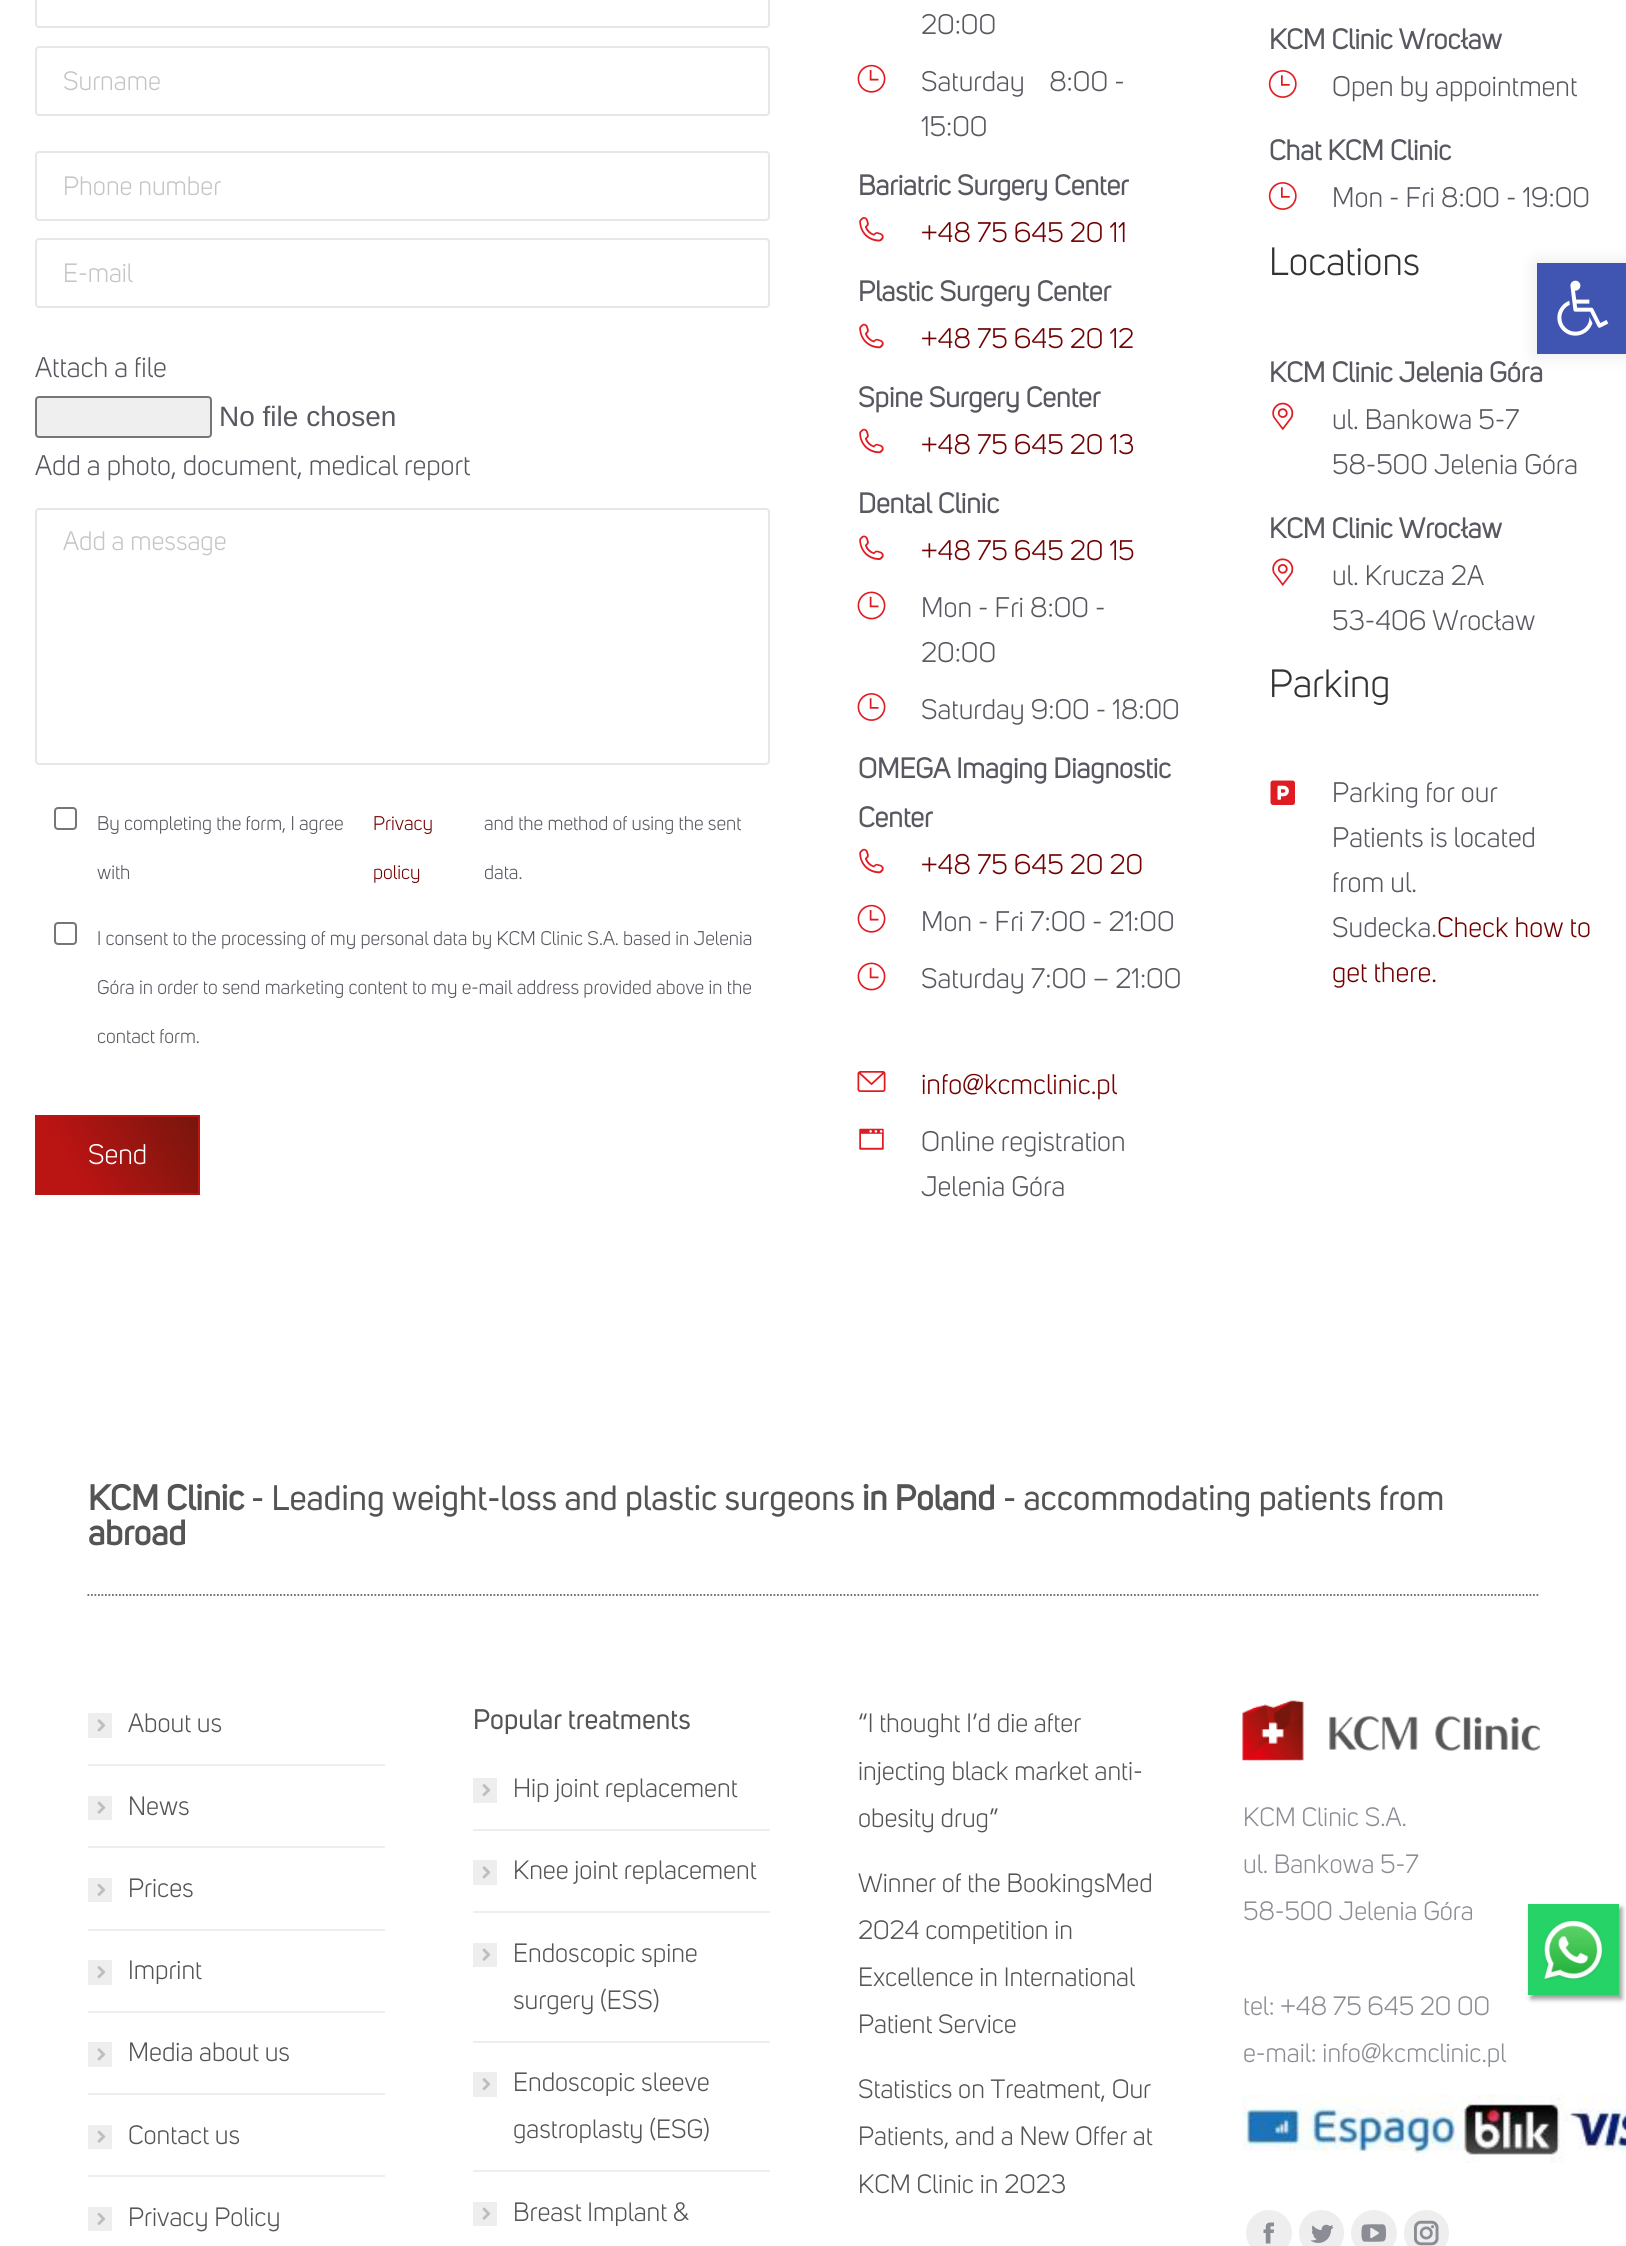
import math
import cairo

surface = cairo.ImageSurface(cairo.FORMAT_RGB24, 1626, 2246)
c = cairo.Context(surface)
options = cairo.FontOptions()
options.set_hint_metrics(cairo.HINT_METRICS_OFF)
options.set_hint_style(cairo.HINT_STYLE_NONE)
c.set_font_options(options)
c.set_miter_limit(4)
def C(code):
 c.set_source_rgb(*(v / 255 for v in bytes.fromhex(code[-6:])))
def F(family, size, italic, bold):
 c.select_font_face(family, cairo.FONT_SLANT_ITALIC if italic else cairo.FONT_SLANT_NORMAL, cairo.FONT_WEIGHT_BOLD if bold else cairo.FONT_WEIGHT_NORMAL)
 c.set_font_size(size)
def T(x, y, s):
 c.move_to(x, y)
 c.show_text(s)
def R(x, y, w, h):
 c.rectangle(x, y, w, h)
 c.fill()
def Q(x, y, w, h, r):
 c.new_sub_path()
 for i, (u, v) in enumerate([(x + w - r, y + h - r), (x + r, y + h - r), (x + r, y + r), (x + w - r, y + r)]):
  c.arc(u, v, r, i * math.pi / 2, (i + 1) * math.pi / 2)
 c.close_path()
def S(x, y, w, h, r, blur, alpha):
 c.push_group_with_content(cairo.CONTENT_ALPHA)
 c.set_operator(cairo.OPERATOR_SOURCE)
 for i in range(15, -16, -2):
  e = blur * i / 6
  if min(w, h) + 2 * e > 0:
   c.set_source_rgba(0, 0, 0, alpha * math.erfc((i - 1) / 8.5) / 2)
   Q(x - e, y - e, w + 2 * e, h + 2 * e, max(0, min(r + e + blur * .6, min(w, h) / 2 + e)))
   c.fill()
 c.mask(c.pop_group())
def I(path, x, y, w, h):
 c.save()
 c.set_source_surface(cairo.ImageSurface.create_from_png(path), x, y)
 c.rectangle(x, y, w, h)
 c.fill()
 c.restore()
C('ffffff')
c.paint()
Q(36,-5,733,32,3)
C('e7e7e7')
c.stroke()
Q(36,47,733,68,3)
c.stroke()
F('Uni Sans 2',26.25,0,0)
C('c4c5c9')
T(63,90,'Surname')
Q(36,152,733,68,3)
C('e7e7e7')
c.stroke()
C('c4c5c9')
T(63,195,'Phone number')
Q(36,239,733,68,3)
C('e7e7e7')
c.stroke()
C('c4c5c9')
T(63,282,'E-mail')
F('Uni Sans 2',28,0,0)
C('575860')
T(35,377,'Attach a file')
C('efefef')
Q(36,397,175,40,3)
c.fill_preserve()
C('767676')
c.stroke()
F('Liberation Sans',28,0,0)
C('575860')
T(219,426,'No file chosen')
F('Uni Sans 2',28,0,0)
T(35,475,'Add a photo, document, medical report')
Q(36,509,733,255,3)
C('e7e7e7')
c.stroke()
F('Uni Sans 2',26.25,0,0)
C('c4c5c9')
T(63,550,'Add a message')
Q(55,808,21,21,3)
C('767676')
c.stroke()
F('Uni Sans 2',19.6,0,0)
C('575860')
T(97,830,'By completing the form, I agree')
C('720101')
T(373,830,'Privacy')
T(373,879,'policy')
C('575860')
T(484,830,'and the method of using the sent')
T(97,879,'with')
T(484,879,'data.')
Q(55,923,21,21,3)
C('767676')
c.stroke()
C('575860')
T(97,945,'I consent to the processing of my personal data by KCM Clinic S.A. based in Jelenia')
T(97,994,'Góra in order to send marketing content to my e-mail address provided above in the')
T(97,1043,'contact form.')
gradient = cairo.LinearGradient(40,1199,194,1111)
gradient.add_color_stop_rgba(.25,0.729,0.078,0.075,1)
gradient.add_color_stop_rgba(1,0.467,0.086,0.051,1)
c.set_source(gradient)
R(37,1117,161,76)
c.rectangle(36,1116,163,78)
C('ba1413')
c.stroke()
F('Uni Sans 2',28,0,0)
C('ffffff')
T(88,1164,'Send')
C('575860')
T(921,34,'20:00')
I('1.png',857,64,29,29)
T(921,91,'Saturday    8:00 -')
T(921,136,'15:00')
F('Uni Sans 2',28,0,1)
T(858,195,'Bariatric Surgery Center')
I('2.png',859,217,25,25)
F('Uni Sans 2',28,0,0)
C('720101')
T(921,242,'+48 75 645 20 11')
F('Uni Sans 2',28,0,1)
C('575860')
T(858,301,'Plastic Surgery Center')
I('3.png',859,323,25,26)
F('Uni Sans 2',28,0,0)
C('720101')
T(921,348,'+48 75 645 20 12')
F('Uni Sans 2',28,0,1)
C('575860')
T(858,407,'Spine Surgery Center')
I('3.png',859,428,25,26)
F('Uni Sans 2',28,0,0)
C('720101')
T(921,454,'+48 75 645 20 13')
F('Uni Sans 2',28,0,1)
C('575860')
T(858,513,'Dental Clinic')
I('4.png',859,535,25,25)
F('Uni Sans 2',28,0,0)
C('720101')
T(921,560,'+48 75 645 20 15')
I('5.png',857,591,29,29)
C('575860')
T(921,617,'Mon - Fri 8:00 -')
T(921,662,'20:00')
I('6.png',857,693,29,28)
T(921,719,'Saturday 9:00 - 18:00')
F('Uni Sans 2',28,0,1)
T(858,778,'OMEGA Imaging Diagnostic')
T(858,827,'Center')
I('3.png',859,848,25,26)
F('Uni Sans 2',28,0,0)
C('720101')
T(921,874,'+48 75 645 20 20')
I('1.png',857,904,29,29)
C('575860')
T(921,931,'Mon - Fri 7:00 - 21:00')
I('5.png',857,962,29,29)
T(921,988,'Saturday 7:00 – 21:00')
I('7.png',857,1071,29,21)
C('720101')
T(921,1094,'info@kcmclinic.pl')
I('8.png',859,1128,25,22)
C('575860')
T(921,1151,'Online registration')
T(921,1196,'Jelenia Góra')
F('Uni Sans 2',28,0,1)
T(1269,49,'KCM Clinic Wrocław')
I('9.png',1268,70,29,28)
F('Uni Sans 2',28,0,0)
T(1332,96,'Open by appointment')
F('Uni Sans 2',28,0,1)
T(1269,160,'Chat KCM Clinic')
I('9.png',1268,182,29,28)
F('Uni Sans 2',28,0,0)
T(1332,207,'Mon - Fri 8:00 - 19:00')
F('Uni Sans 2',39,0,0)
C('333333')
T(1269,275,'Locations')
F('Uni Sans 2',28,0,1)
C('575860')
T(1269,382,'KCM Clinic Jelenia Góra')
I('10.png',1272,402,22,29)
F('Uni Sans 2',28,0,0)
T(1332,429,'ul. Bankowa 5-7')
T(1332,474,'58-500 Jelenia Góra')
F('Uni Sans 2',28,0,1)
T(1269,538,'KCM Clinic Wrocław')
I('11.png',1272,558,22,28)
F('Uni Sans 2',28,0,0)
T(1332,585,'ul. Krucza 2A')
T(1332,630,'53-406 Wrocław')
F('Uni Sans 2',39,0,0)
C('333333')
T(1269,697,'Parking')
I('12.png',1270,780,25,25)
F('Uni Sans 2',28,0,0)
C('575860')
T(1332,802,'Parking for our')
T(1332,847,'Patients is located')
T(1332,892,'from ul.')
T(1332,937,'Sudecka.')
C('720101')
T(1437,937,'Check how to')
T(1332,982,'get there.')
c.new_path()
c.move_to(87.5,1595)
c.line_to(1540,1595)
C('666666')
c.set_line_width(1.8)
c.set_dash([1.75,1.75])
c.stroke()
F('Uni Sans',35,0,1)
C('545454')
T(88,1510,'KCM Clinic')
F('Uni Sans',35,0,0)
T(251,1510,'- Leading weight-loss and plastic surgeons')
F('Uni Sans',35,0,1)
T(862,1510,'in Poland')
F('Uni Sans',35,0,0)
T(1003,1510,'- accommodating patients from')
F('Uni Sans',35,0,1)
T(88,1545,'abroad')
C('eeeeef')
R(88,1713,24,25)
F('Uni Sans 2',26.25,0,0)
C('545454')
T(128,1732,'About us')
I('13.png',97,1719,9,13)
C('eeeeef')
R(88,1764,297,2)
R(88,1796,24,24)
C('545454')
T(128,1815,'News')
I('14.png',97,1801,9,13)
C('eeeeef')
R(88,1846,297,2)
R(88,1878,24,24)
C('545454')
T(128,1897,'Prices')
I('15.png',97,1883,9,13)
C('eeeeef')
R(88,1929,297,2)
R(88,1960,24,25)
C('545454')
T(128,1979,'Imprint')
I('16.png',97,1966,9,13)
C('eeeeef')
R(88,2011,297,2)
R(88,2042,24,25)
C('545454')
T(128,2061,'Media about us')
I('13.png',97,2048,9,13)
C('eeeeef')
R(88,2093,297,2)
R(88,2125,24,24)
C('545454')
T(128,2144,'Contact us')
I('14.png',97,2130,9,13)
C('eeeeef')
R(88,2175,297,2)
R(88,2207,24,24)
C('545454')
T(128,2226,'Privacy Policy')
I('15.png',97,2212,9,13)
F('Uni Sans',28,0,0)
T(473,1729,'Popular treatments')
C('eeeeef')
R(473,1778,24,25)
F('Uni Sans 2',26.25,0,0)
C('545454')
T(513,1797,'Hip joint replacement')
I('16.png',482,1784,9,13)
C('eeeeef')
R(473,1829,297,2)
R(473,1860,24,25)
C('545454')
T(513,1879,'Knee joint replacement')
I('13.png',482,1866,9,13)
C('eeeeef')
R(473,1911,297,2)
R(473,1943,24,24)
C('545454')
T(513,1962,'Endoscopic spine')
I('14.png',482,1948,9,13)
T(513,2009,'surgery (ESS)')
C('eeeeef')
R(473,2041,297,2)
R(473,2072,24,25)
C('545454')
T(513,2091,'Endoscopic sleeve')
I('16.png',482,2078,9,13)
T(513,2138,'gastroplasty (ESG)')
C('eeeeef')
R(473,2170,297,2)
R(473,2202,24,24)
C('545454')
T(513,2221,'Breast Implant &')
I('14.png',482,2207,9,13)
T(858,1732,'“I thought I’d die after')
T(858,1780,'injecting black market anti-')
T(858,1827,'obesity drug”')
T(858,1892,'Winner of the BookingsMed')
T(858,1939,'2024 competition in')
T(858,1986,'Excellence in International')
T(858,2033,'Patient Service')
T(858,2098,'Statistics on Treatment, Our')
T(858,2145,'Patients, and a New Offer at')
T(858,2193,'KCM Clinic in 2023')
I('17.png',1242,1700,298,61)
C('8b8d94')
T(1243,1826,'KCM Clinic S.A.')
T(1243,1873,'ul. Bankowa 5-7')
T(1243,1920,'58-500 Jelenia Góra')
T(1243,2015,'tel: +48 75 645 20 00')
T(1243,2062,'e-mail: info@kcmclinic.pl')
I('18.png',1242,2094,384,69)
C('eeeeef')
c.arc(1269,2233,23,0,2 * math.pi)
c.fill()
I('19.png',1263,2222,11,22)
Q(1299,2210,45,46,22.5)
c.fill()
I('20.png',1311,2224,23,19)
c.arc(1374,2233,23,0,2 * math.pi)
c.fill()
I('21.png',1361,2224,25,18)
Q(1404,2210,45,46,22.5)
c.fill()
I('22.png',1414,2220,25,26)
C('000000')
S(1537,263,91,91,0,9,.1)
C('4054b2')
R(1537,263,89,91)
I('23.png',1557,280,52,56)
C('999999')
S(1531,1908,91,91,0,2.5,1)
C('25d366')
R(1528,1904,91,91)
I('24.png',1543,1920,60,60)
surface.write_to_png('o.png')
